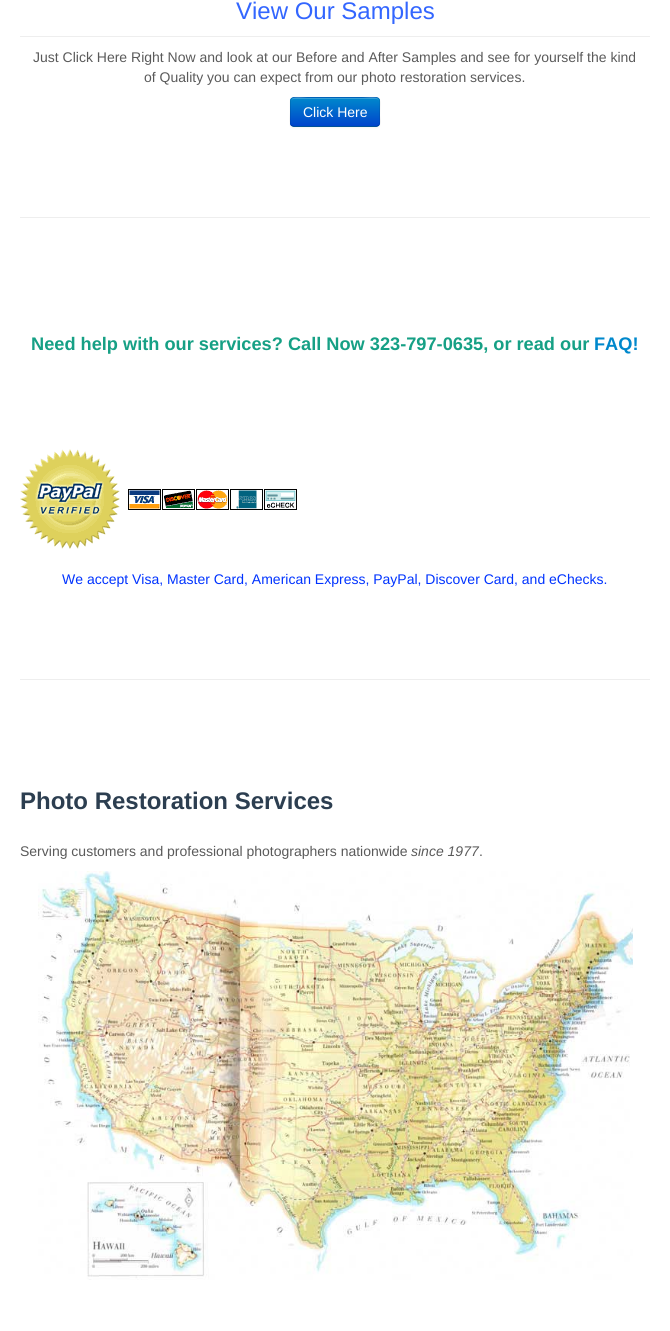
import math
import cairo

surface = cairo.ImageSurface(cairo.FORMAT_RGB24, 670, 1331)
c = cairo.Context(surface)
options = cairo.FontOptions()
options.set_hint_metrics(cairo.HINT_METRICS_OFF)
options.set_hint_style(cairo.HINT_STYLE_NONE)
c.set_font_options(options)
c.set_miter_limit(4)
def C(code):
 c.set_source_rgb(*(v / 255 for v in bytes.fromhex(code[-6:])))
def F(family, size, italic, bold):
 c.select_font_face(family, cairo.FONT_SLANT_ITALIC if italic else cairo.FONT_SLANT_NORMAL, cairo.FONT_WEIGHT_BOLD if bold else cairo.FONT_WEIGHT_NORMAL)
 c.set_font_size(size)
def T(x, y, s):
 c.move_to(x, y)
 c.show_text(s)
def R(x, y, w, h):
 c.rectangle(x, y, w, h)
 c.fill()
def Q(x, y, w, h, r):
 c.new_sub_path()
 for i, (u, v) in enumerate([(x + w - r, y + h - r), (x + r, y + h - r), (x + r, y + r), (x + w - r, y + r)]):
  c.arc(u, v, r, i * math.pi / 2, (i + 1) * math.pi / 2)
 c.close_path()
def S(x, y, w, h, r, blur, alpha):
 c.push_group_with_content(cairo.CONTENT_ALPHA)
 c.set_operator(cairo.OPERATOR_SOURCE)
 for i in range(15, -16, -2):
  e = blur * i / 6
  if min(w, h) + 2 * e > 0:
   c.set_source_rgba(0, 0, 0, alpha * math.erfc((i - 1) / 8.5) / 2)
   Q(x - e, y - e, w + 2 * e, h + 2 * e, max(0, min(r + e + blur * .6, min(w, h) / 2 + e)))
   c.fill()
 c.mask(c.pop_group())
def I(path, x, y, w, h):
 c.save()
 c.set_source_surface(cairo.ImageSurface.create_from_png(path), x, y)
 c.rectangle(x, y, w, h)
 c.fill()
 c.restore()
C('ffffff')
c.paint()
C('eeeeee')
R(20,36,630,1)
F('Liberation Sans',24,0,0)
C('3366ff')
T(236,19,'View Our Samples')
F('Liberation Sans',14,0,0)
C('5a5a5a')
T(33,62,'Just Click Here Right Now and look at our Before and After Samples and see for yourself the kind')
T(144,82,'of Quality you can expect from our photo restoration services.')
C('000000')
S(290,98,90,30,4,1,.05)
C('006dcc')
Q(290,97,90,30,4)
c.fill()
c.save()
Q(290,97,90,30,4)
c.clip()
gradient = cairo.LinearGradient(335,98,335,126)
gradient.add_color_stop_rgba(0,0,0.533,0.8,1)
gradient.add_color_stop_rgba(1,0,0.267,0.8,1)
c.set_source(gradient)
R(290,98,90,28)
c.restore()
c.set_source_rgba(1,1,1,0.2)
c.new_path()
c.move_to(294,99)
c.line_to(376,99)
c.curve_to(378,99,379,100,379,102)
c.curve_to(379,94,366,98,362,98)
c.line_to(308,98)
c.curve_to(304,98,291,94,291,102)
c.curve_to(291,100,292,99,294,99)
c.close_path()
c.fill()
c.new_path()
c.move_to(378.5,125.5)
c.line_to(376.5,126.5)
c.line_to(293.5,126.5)
c.line_to(291.5,125.5)
c.set_source_rgba(0,0,0,0.25)
c.set_line_width(1)
c.stroke()
c.new_path()
c.move_to(291.5,125.5)
c.curve_to(289.5,123.5,290.5,115,290.5,112)
c.curve_to(290.5,94.5,288.5,97.5,307.5,97.5)
c.line_to(362.5,97.5)
c.curve_to(383.5,97.5,379.5,95,379.5,115.5)
c.curve_to(379.5,118.5,381,123,378.5,125.5)
c.set_source_rgba(0,0,0,0.1)
c.stroke()
C('ffffff')
T(303,117,'Click Here')
C('eeeeee')
R(20,217,630,1)
F('Liberation Sans',18.2,0,1)
C('16a085')
T(31,350,'Need help with our services? Call Now 323-797-0635, or read our')
C('0088cc')
T(594,350,'FAQ!')
I('1.png',20,449,100,100)
I('2.png',128,489,169,21)
F('Liberation Sans',14,0,0)
C('0033ff')
T(62,584,'We accept Visa, Master Card, American Express, PayPal, Discover Card, and eChecks.')
C('eeeeee')
R(20,679,630,1)
F('Liberation Sans',24,0,1)
C('2c3e50')
T(20,809,'Photo Restoration Services')
F('Liberation Sans',14,0,0)
C('5a5a5a')
T(20,856,'Serving customers and professional photographers nationwide')
F('Liberation Sans',14,1,0)
T(411,856,'since 1977')
F('Liberation Sans',14,0,0)
T(479,856,'.')
I('3.png',38,871,595,409)
surface.write_to_png('o.png')
